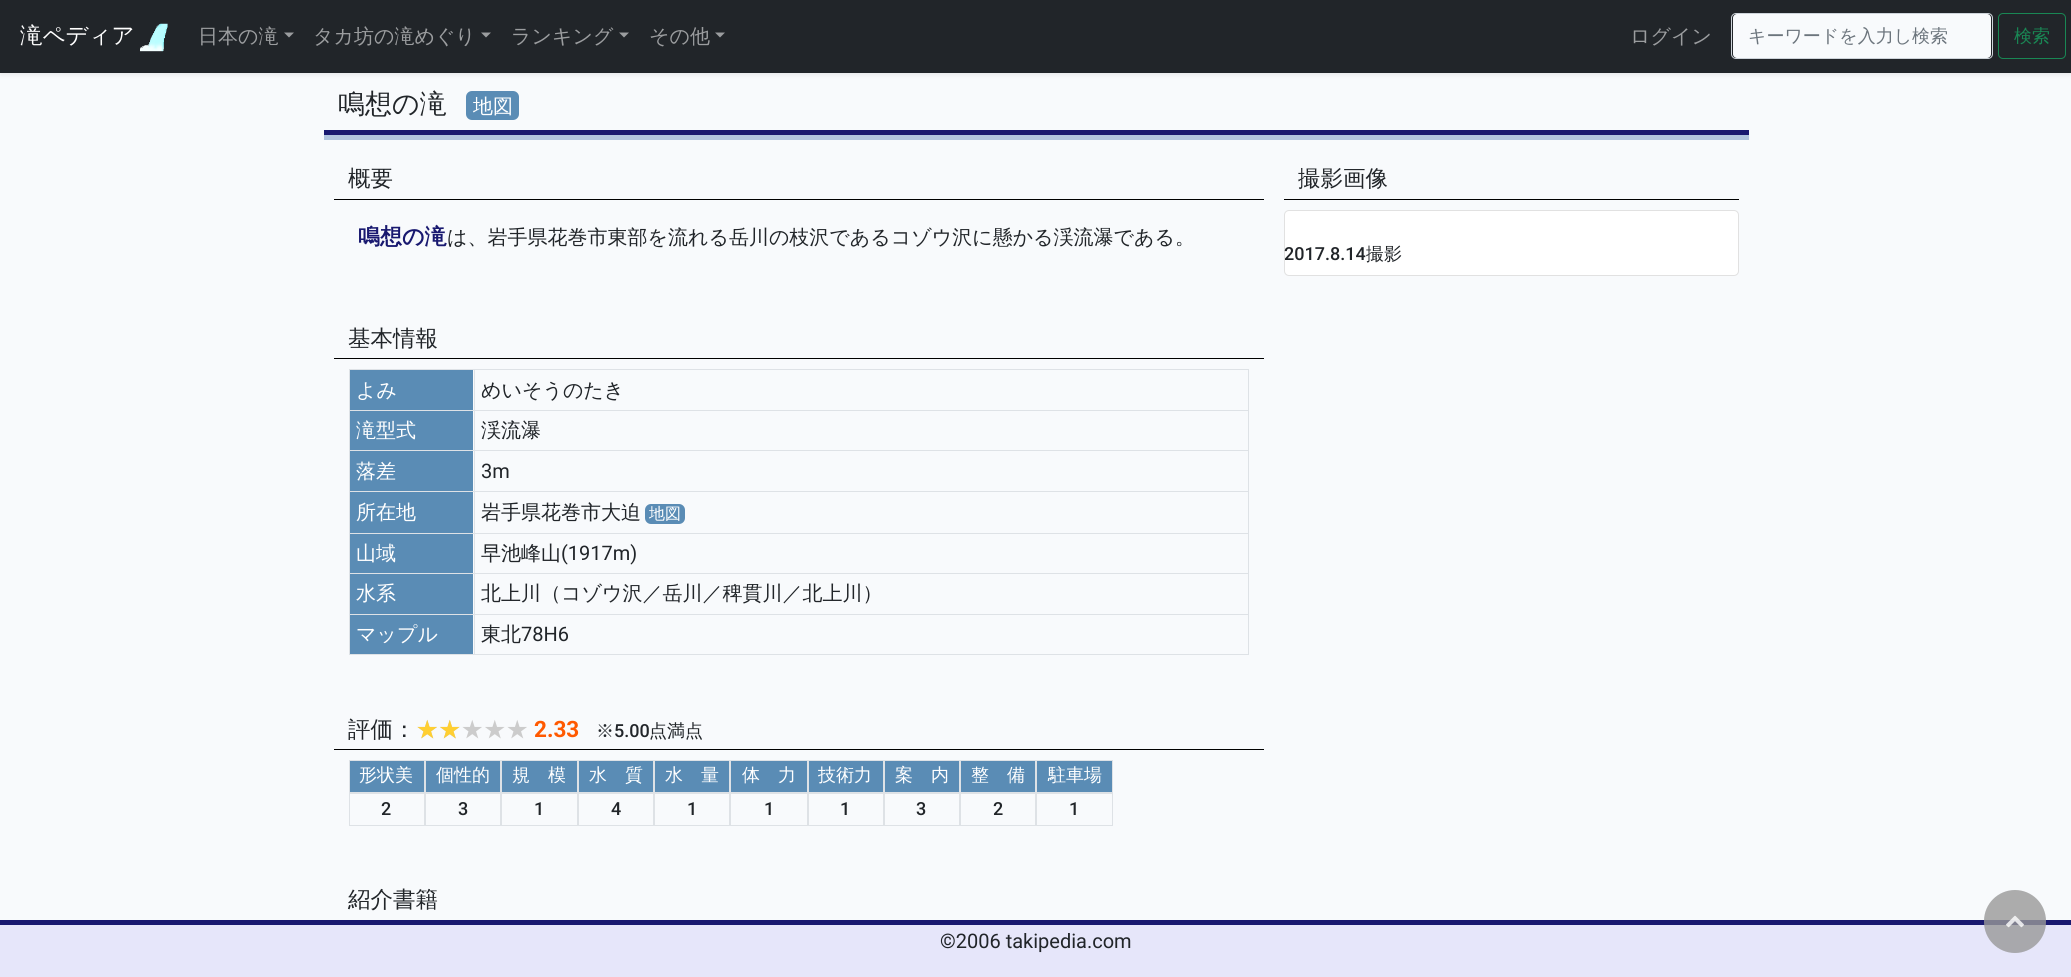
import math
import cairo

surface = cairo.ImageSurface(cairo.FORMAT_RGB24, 2071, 977)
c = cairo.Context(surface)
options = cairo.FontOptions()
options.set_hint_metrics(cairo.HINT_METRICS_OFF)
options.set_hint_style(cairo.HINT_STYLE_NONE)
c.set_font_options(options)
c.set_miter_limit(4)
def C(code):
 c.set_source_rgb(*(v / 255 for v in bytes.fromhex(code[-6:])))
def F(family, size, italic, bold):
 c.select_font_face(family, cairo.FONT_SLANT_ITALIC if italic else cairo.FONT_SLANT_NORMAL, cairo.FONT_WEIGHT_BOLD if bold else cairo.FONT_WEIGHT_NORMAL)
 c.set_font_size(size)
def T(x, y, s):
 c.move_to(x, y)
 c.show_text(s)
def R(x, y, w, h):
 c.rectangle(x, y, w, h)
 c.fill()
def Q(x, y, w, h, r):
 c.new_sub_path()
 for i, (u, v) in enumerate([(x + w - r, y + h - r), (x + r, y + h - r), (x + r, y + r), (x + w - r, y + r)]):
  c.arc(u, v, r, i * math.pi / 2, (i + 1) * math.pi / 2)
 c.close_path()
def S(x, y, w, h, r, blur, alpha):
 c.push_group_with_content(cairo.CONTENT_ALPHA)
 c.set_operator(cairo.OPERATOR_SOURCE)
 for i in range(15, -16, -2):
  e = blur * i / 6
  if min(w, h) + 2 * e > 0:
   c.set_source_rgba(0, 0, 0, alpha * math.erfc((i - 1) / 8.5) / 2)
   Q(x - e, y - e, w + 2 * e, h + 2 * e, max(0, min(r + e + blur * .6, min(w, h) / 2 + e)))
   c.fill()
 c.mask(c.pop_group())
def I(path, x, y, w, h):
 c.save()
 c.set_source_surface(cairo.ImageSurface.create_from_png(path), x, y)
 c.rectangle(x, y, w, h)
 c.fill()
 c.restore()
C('f8fafc')
c.paint()
C('000000')
S(0,3,2071,72,0,2.5,.07)
C('212529')
R(0,0,2071,73)
F('WenQuanYi Zen Hei Medium',22.5,0,0)
C('ffffff')
T(20,43,'滝ペディア')
I('1.png',140,23,28,29)
F('WenQuanYi Zen Hei Medium',20,0,0)
C('9b9d9f')
T(198,43,'日本の滝')
c.new_path()
c.move_to(284,32.5)
c.line_to(294,32.5)
c.line_to(289,37.5)
c.close_path()
c.fill()
T(313,43,'タカ坊の滝めぐり')
c.new_path()
c.move_to(481,32.5)
c.line_to(491,32.5)
c.line_to(486,37.5)
c.close_path()
c.fill()
T(511,43,'ランキング')
c.new_path()
c.move_to(619,32.5)
c.line_to(629,32.5)
c.line_to(624,37.5)
c.close_path()
c.fill()
T(649,43,'その他')
c.new_path()
c.move_to(715,32.5)
c.line_to(725,32.5)
c.line_to(720,37.5)
c.close_path()
c.fill()
T(1630,43,'ログイン')
C('f8fafc')
Q(1733,14,258,44,4)
c.fill()
Q(1731.5,13.5,261,45,4.5)
C('ced4da')
c.set_line_width(1)
c.stroke()
F('WenQuanYi Zen Hei Medium',18,0,0)
C('6c757d')
T(1748,42,'キーワードを入力し検索')
Q(1998.5,13.5,67,45,4.5)
C('198754')
c.stroke()
T(2014,42,'検索')
C('e6e6fa')
R(0,925,2071,52)
C('191970')
R(0,920,2071,5)
c.set_source_rgba(0.6,0.6,0.6,0.8)
Q(1984,890,62,63,31)
c.fill()
I('2.png',2006,915,18,13)
C('191970')
R(324,130,1425,5)
F('WenQuanYi Zen Hei Medium',27,0,0)
C('212529')
T(338,113,'鳴想の滝')
C('5a8cb5')
Q(466,91,53,29,6)
c.fill()
F('WenQuanYi Zen Hei Medium',20,0,0)
C('ffffff')
T(473,113,'地図')
C('b0c4de')
R(324,135,1425,5)
C('000000')
R(334,199,930,1)
F('WenQuanYi Zen Hei Medium',22.5,0,0)
C('212529')
T(348,186,'概要')
F('WenQuanYi Zen Hei',22,0,1)
C('191970')
T(358,244,'鳴想の滝')
F('WenQuanYi Zen Hei Medium',20,0,0)
C('212529')
T(447,244,'は、岩手県花巻市東部を流れる岳川の枝沢であるコゾウ沢に懸かる渓流瀑である。')
C('000000')
R(334,358,930,1)
F('WenQuanYi Zen Hei Medium',22.5,0,0)
C('212529')
T(348,346,'基本情報')
C('dee2e6')
R(349,369,900,1)
C('5a8cb5')
R(350,370,123,40)
F('WenQuanYi Zen Hei Medium',20,0,0)
C('ffffff')
T(356,397,'よみ')
C('212529')
T(481,397,'めいそうのたき')
C('dee2e6')
R(349,410,900,1)
C('5a8cb5')
R(350,411,123,39)
C('ffffff')
T(356,437,'滝型式')
C('212529')
T(481,437,'渓流瀑')
C('dee2e6')
R(349,450,900,1)
C('5a8cb5')
R(350,451,123,82)
C('ffffff')
T(356,478,'落差')
F('Roboto',20,0,0)
C('212529')
T(481,478,'3m')
C('dee2e6')
R(349,491,900,1)
F('WenQuanYi Zen Hei Medium',20,0,0)
C('ffffff')
T(356,519,'所在地')
C('212529')
T(481,519,'岩手県花巻市大迫')
C('5a8cb5')
Q(645,504,40,20,6)
c.fill()
F('WenQuanYi Zen Hei Medium',16,0,0)
C('ffffff')
T(649,519,'地図')
C('dee2e6')
R(349,533,900,1)
C('5a8cb5')
R(350,534,123,39)
F('WenQuanYi Zen Hei Medium',20,0,0)
C('ffffff')
T(356,560,'山域')
C('212529')
T(481,560,'早池峰山')
F('Roboto',20,0,0)
T(561,560,'(1917m)')
C('dee2e6')
R(349,573,900,1)
C('5a8cb5')
R(350,574,123,40)
F('WenQuanYi Zen Hei Medium',20,0,0)
C('ffffff')
T(356,600,'水系')
C('212529')
T(481,600,'北上川（コゾウ沢／岳川／稗貫川／北上川）')
C('dee2e6')
R(349,614,900,1)
R(349,654,900,1)
C('5a8cb5')
R(350,615,123,39)
C('dee2e6')
R(349,369,1,286)
C('ffffff')
T(356,641,'マップル')
C('dee2e6')
R(1248,369,1,286)
R(474,369,1,286)
C('212529')
T(481,641,'東北')
F('Roboto',20,0,0)
T(521,641,'78H6')
C('000000')
R(334,749,930,1)
F('WenQuanYi Zen Hei Medium',22.5,0,0)
C('212529')
T(348,737,'評価：')
C('cccccc')
T(416,737,'★★★★★')
C('ffcf32')
T(416,737,'★★')
F('Roboto',22.5,0,1)
C('ff5900')
T(534,737,'2.33')
F('WenQuanYi Zen Hei Medium',18,0,0)
C('212529')
T(596,737,'※')
F('Roboto Medium',18,0,0)
T(614,737,'5.00')
F('WenQuanYi Zen Hei Medium',18,0,0)
T(649,737,'点満点')
C('5a8cb5')
c.rectangle(349.5,760.5,75,32)
c.fill_preserve()
C('dee2e6')
c.stroke()
C('ffffff')
T(359,781,'形状美')
c.rectangle(349.5,793.5,75,32)
C('dee2e6')
c.stroke()
F('Roboto Medium',18,0,0)
C('212529')
T(381,815,'2')
C('5a8cb5')
c.rectangle(425.5,760.5,75,32)
c.fill_preserve()
C('dee2e6')
c.stroke()
F('WenQuanYi Zen Hei Medium',18,0,0)
C('ffffff')
T(436,781,'個性的')
c.rectangle(425.5,793.5,75,32)
C('dee2e6')
c.stroke()
F('Roboto Medium',18,0,0)
C('212529')
T(458,815,'3')
C('5a8cb5')
c.rectangle(501.5,760.5,76,32)
c.fill_preserve()
C('dee2e6')
c.stroke()
F('WenQuanYi Zen Hei Medium',18,0,0)
C('ffffff')
T(512,781,'規　模')
c.rectangle(501.5,793.5,76,32)
C('dee2e6')
c.stroke()
F('Roboto Medium',18,0,0)
C('212529')
T(534,815,'1')
C('5a8cb5')
c.rectangle(578.5,760.5,75,32)
c.fill_preserve()
C('dee2e6')
c.stroke()
F('WenQuanYi Zen Hei Medium',18,0,0)
C('ffffff')
T(589,781,'水　質')
c.rectangle(578.5,793.5,75,32)
C('dee2e6')
c.stroke()
F('Roboto Medium',18,0,0)
C('212529')
T(611,815,'4')
C('5a8cb5')
c.rectangle(654.5,760.5,75,32)
c.fill_preserve()
C('dee2e6')
c.stroke()
F('WenQuanYi Zen Hei Medium',18,0,0)
C('ffffff')
T(665,781,'水　量')
c.rectangle(654.5,793.5,75,32)
C('dee2e6')
c.stroke()
F('Roboto Medium',18,0,0)
C('212529')
T(687,815,'1')
C('5a8cb5')
c.rectangle(730.5,760.5,77,32)
c.fill_preserve()
C('dee2e6')
c.stroke()
F('WenQuanYi Zen Hei Medium',18,0,0)
C('ffffff')
T(742,781,'体　力')
c.rectangle(730.5,793.5,77,32)
C('dee2e6')
c.stroke()
F('Roboto Medium',18,0,0)
C('212529')
T(764,815,'1')
C('5a8cb5')
c.rectangle(808.5,760.5,75,32)
c.fill_preserve()
C('dee2e6')
c.stroke()
F('WenQuanYi Zen Hei Medium',18,0,0)
C('ffffff')
T(818,781,'技術力')
c.rectangle(808.5,793.5,75,32)
C('dee2e6')
c.stroke()
F('Roboto Medium',18,0,0)
C('212529')
T(840,815,'1')
C('5a8cb5')
c.rectangle(884.5,760.5,75,32)
c.fill_preserve()
C('dee2e6')
c.stroke()
F('WenQuanYi Zen Hei Medium',18,0,0)
C('ffffff')
T(895,781,'案　内')
c.rectangle(884.5,793.5,75,32)
C('dee2e6')
c.stroke()
F('Roboto Medium',18,0,0)
C('212529')
T(916,815,'3')
C('5a8cb5')
c.rectangle(960.5,760.5,75,32)
c.fill_preserve()
C('dee2e6')
c.stroke()
F('WenQuanYi Zen Hei Medium',18,0,0)
C('ffffff')
T(971,781,'整　備')
c.rectangle(960.5,793.5,75,32)
C('dee2e6')
c.stroke()
F('Roboto Medium',18,0,0)
C('212529')
T(993,815,'2')
C('5a8cb5')
c.rectangle(1036.5,760.5,76,32)
c.fill_preserve()
C('dee2e6')
c.stroke()
F('WenQuanYi Zen Hei Medium',18,0,0)
C('ffffff')
T(1048,781,'駐車場')
c.rectangle(1036.5,793.5,76,32)
C('dee2e6')
c.stroke()
F('Roboto Medium',18,0,0)
C('212529')
T(1069,815,'1')
F('WenQuanYi Zen Hei Medium',22.5,0,0)
T(348,907,'紹介書籍')
C('000000')
R(1284,199,455,1)
C('212529')
T(1298,186,'撮影画像')
C('ffffff')
Q(1284,210,455,66,5)
c.fill()
Q(1284.5,210.5,454,65,4.5)
c.set_source_rgba(0,0,0,0.12)
c.stroke()
F('Roboto Medium',18,0,0)
C('212529')
T(1284,260,'2017.8.14')
F('WenQuanYi Zen Hei Medium',18,0,0)
T(1366,260,'撮影')
F('Roboto',20,0,0)
T(940,948,'©2006 takipedia.com')
surface.write_to_png('o.png')
